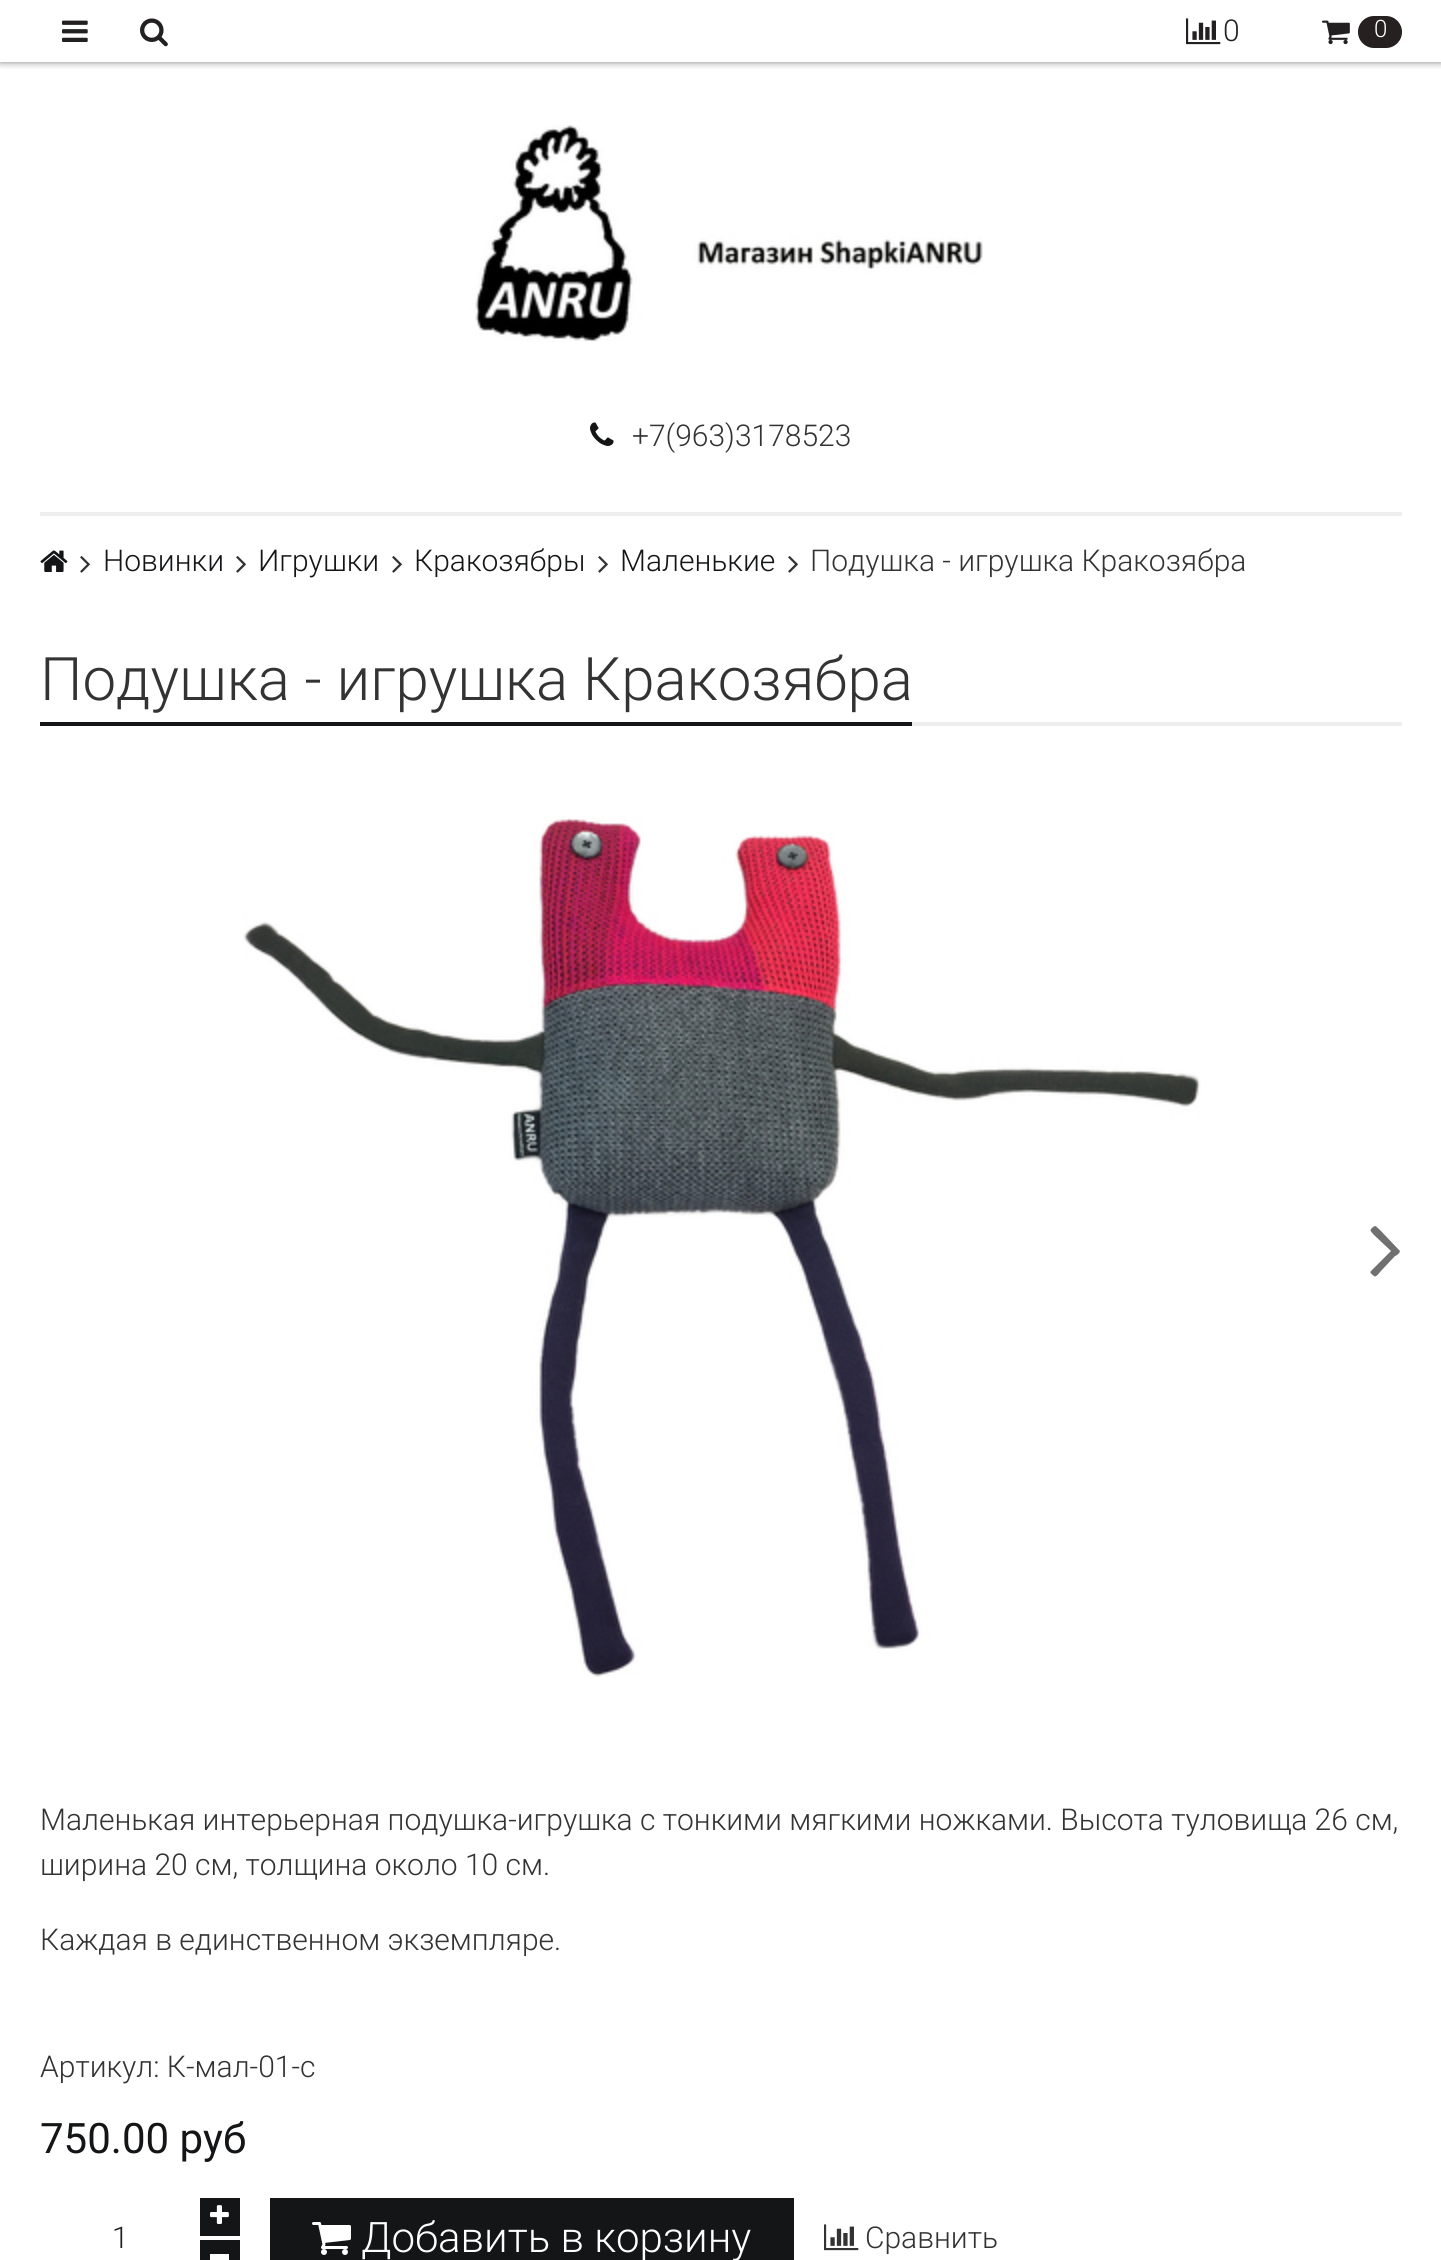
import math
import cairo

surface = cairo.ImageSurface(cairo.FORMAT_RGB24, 1441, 2260)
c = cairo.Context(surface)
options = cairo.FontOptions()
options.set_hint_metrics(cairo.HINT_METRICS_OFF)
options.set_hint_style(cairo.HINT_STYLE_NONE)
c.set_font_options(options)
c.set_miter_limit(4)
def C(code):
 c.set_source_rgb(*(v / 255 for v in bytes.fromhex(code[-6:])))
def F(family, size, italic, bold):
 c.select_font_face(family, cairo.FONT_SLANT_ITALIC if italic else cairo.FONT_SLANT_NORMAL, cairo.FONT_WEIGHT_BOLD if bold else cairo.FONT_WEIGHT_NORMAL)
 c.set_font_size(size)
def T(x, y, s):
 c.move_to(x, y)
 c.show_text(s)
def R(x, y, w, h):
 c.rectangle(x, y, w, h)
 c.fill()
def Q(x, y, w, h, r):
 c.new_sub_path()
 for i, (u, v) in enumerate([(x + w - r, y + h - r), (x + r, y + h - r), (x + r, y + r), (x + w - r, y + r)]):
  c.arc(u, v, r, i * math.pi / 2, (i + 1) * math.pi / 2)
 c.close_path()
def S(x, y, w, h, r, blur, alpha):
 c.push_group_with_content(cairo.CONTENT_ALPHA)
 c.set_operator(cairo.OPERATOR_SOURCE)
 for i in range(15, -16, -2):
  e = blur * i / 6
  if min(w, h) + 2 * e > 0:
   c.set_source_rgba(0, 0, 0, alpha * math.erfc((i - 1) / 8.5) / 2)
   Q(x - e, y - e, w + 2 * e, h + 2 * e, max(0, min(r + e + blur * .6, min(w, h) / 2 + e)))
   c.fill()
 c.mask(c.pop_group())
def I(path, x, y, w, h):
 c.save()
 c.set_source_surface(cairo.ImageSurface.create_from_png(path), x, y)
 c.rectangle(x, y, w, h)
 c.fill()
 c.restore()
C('ffffff')
c.paint()
c.save()
c.rectangle(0,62,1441,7)
c.clip()
C('000000')
S(0,0,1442,62,0,4,.5)
c.restore()
I('1.png',62,20,26,22)
I('2.png',140,18,28,29)
I('3.png',1186,18,35,27)
F('Roboto Light',30,0,0)
C('222222')
T(1223,41,'0')
I('4.png',1322,20,28,25)
C('262020')
Q(1358,16,44,32,16)
c.fill()
F('Roboto Light',24,0,0)
C('ffffff')
T(1374,37,'0')
C('eeeeee')
R(40,512,1362,4)
I('5.png',475,125,508,217)
I('6.png',590,422,24,24)
F('Roboto Light',30,0,0)
C('333333')
T(632,446,'+7(963)3178523')
I('7.png',40,550,28,22)
I('8.png',80,556,10,17)
C('141517')
T(103,571,'Новинки')
I('8.png',236,556,10,17)
T(258,571,'Игрушки')
I('8.png',392,556,10,17)
T(414,571,'Кракозябры')
I('8.png',598,556,10,17)
T(620,571,'Маленькие')
I('8.png',788,556,10,17)
C('333333')
T(810,571,'Подушка - игрушка Кракозябра')
C('eeeeee')
R(912,722,490,4)
C('141517')
R(40,722,872,4)
F('Roboto Light',60,0,0)
C('333333')
T(40,700,'Подушка - игрушка Кракозябра')
I('9.png',243,816,958,861)
C('707070')
c.new_path()
c.move_to(1399,1250)
c.curve_to(1402,1252,1396,1256,1395,1256)
c.line_to(1380,1272)
c.curve_to(1380,1272,1376,1278,1374,1276)
c.curve_to(1373,1275,1369,1273,1371,1271)
c.line_to(1391,1251)
c.line_to(1374,1235)
c.curve_to(1371,1231,1369,1231,1372,1228)
c.curve_to(1376,1224,1376,1227,1380,1230)
c.close_path()
c.fill()
F('Roboto Light',30,0,0)
C('333333')
T(40,1830,'Маленькая интерьерная подушка-игрушка с тонкими мягкими ножками. Высота туловища 26 см,')
T(40,1875,'ширина 20 см, толщина около 10 см.')
T(40,1950,'Каждая в единственном экземпляре.')
T(40,2077,'Артикул: К-мал-01-с')
F('Roboto',42,0,0)
C('141517')
T(40,2153,'750.00 руб')
F('Roboto Light',30,0,0)
C('222222')
T(112,2248,'1')
C('141517')
R(200,2198,40,38)
I('10.png',210,2205,19,19)
R(200,2240,40,20)
C('ffffff')
R(210,2254,19,6)
C('141517')
R(270,2198,524,62)
I('11.png',312,2222,39,33)
F('Roboto Light',42,0,0)
C('ffffff')
T(361,2252,'Добавить в корзину')
I('12.png',824,2224,35,27)
F('Roboto Light',30,0,0)
C('333333')
T(865,2248,'Сравнить')
surface.write_to_png('o.png')
